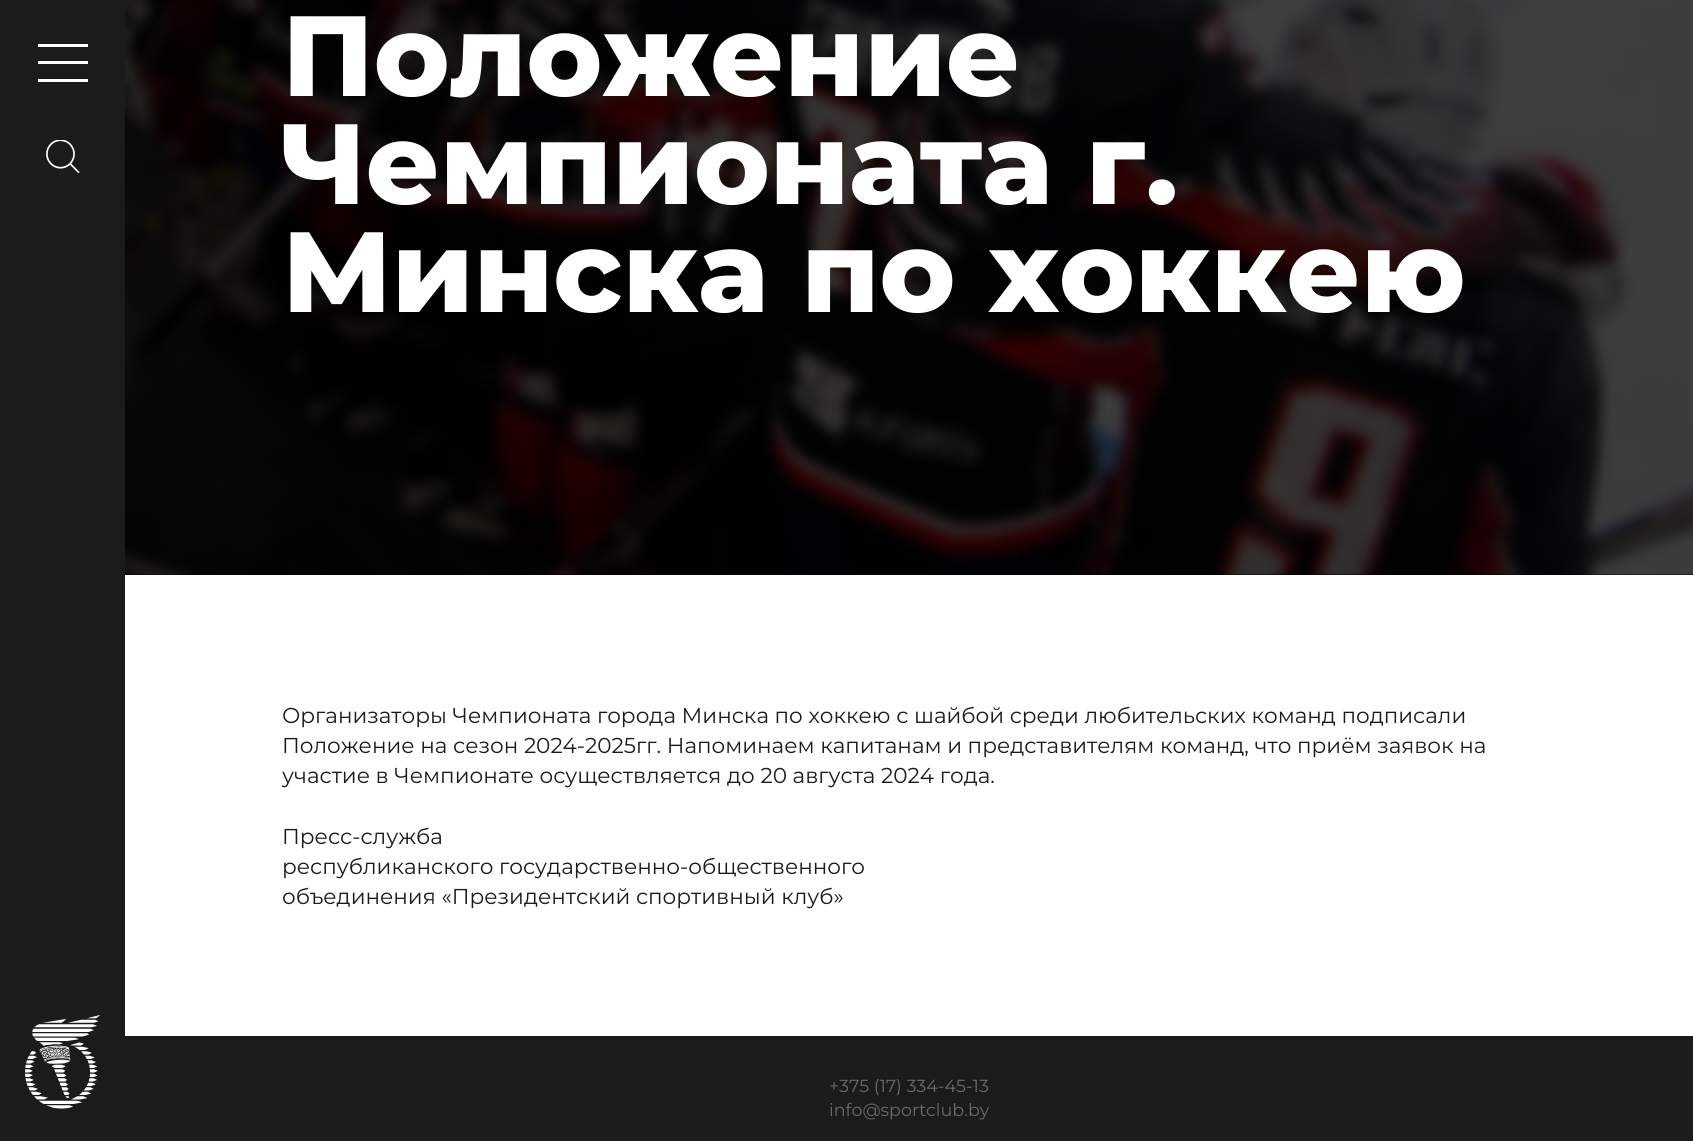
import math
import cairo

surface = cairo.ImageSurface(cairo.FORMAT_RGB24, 1693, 1141)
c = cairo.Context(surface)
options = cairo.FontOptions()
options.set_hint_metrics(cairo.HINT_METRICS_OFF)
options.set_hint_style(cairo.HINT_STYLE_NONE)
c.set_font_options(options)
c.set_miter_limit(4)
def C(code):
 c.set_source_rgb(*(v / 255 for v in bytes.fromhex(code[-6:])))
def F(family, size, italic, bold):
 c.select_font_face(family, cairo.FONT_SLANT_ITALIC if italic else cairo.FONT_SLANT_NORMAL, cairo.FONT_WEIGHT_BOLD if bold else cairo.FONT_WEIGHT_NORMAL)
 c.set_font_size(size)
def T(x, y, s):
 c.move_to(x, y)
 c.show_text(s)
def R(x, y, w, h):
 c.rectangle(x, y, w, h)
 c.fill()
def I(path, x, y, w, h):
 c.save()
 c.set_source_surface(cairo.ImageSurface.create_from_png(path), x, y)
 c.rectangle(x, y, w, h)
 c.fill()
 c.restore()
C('ffffff')
c.paint()
C('1b1b1b')
R(0,0,125,1141)
C('ffffff')
R(38,44,50,3)
R(38,61,50,3)
R(38,79,50,3)
I('1.png',46,140,34,34)
I('2.png',25,1015,75,94)
C('070707')
R(125,574,1568,1)
I('3.png',125,0,1568,575)
F('Montserrat ExtraBold',113.9,0,0)
C('ffffff')
T(282,96,'Положение')
T(282,204,'Чемпионата г.')
T(282,312,'Минска по хоккею')
F('Montserrat',21.55,0,0)
C('1b1b1b')
T(282,723,'Организаторы Чемпионата города Минска по хоккею с шайбой среди любительских команд подписали')
T(282,753,'Положение на сезон 2024-2025гг. Напоминаем капитанам и представителям команд, что приём заявок на')
T(282,783,'участие в Чемпионате осуществляется до 20 августа 2024 года.')
T(282,844,'Пресс-служба')
T(282,874,'республиканского государственно-общественного')
T(282,904,'объединения «Президентский спортивный клуб»')
R(125,1036,1568,105)
F('Montserrat',17.5,0,0)
C('6a6a6a')
T(829,1092,'+375 (17) 334-45-13')
T(829,1116,'info@sportclub.by')
surface.write_to_png('o.png')
